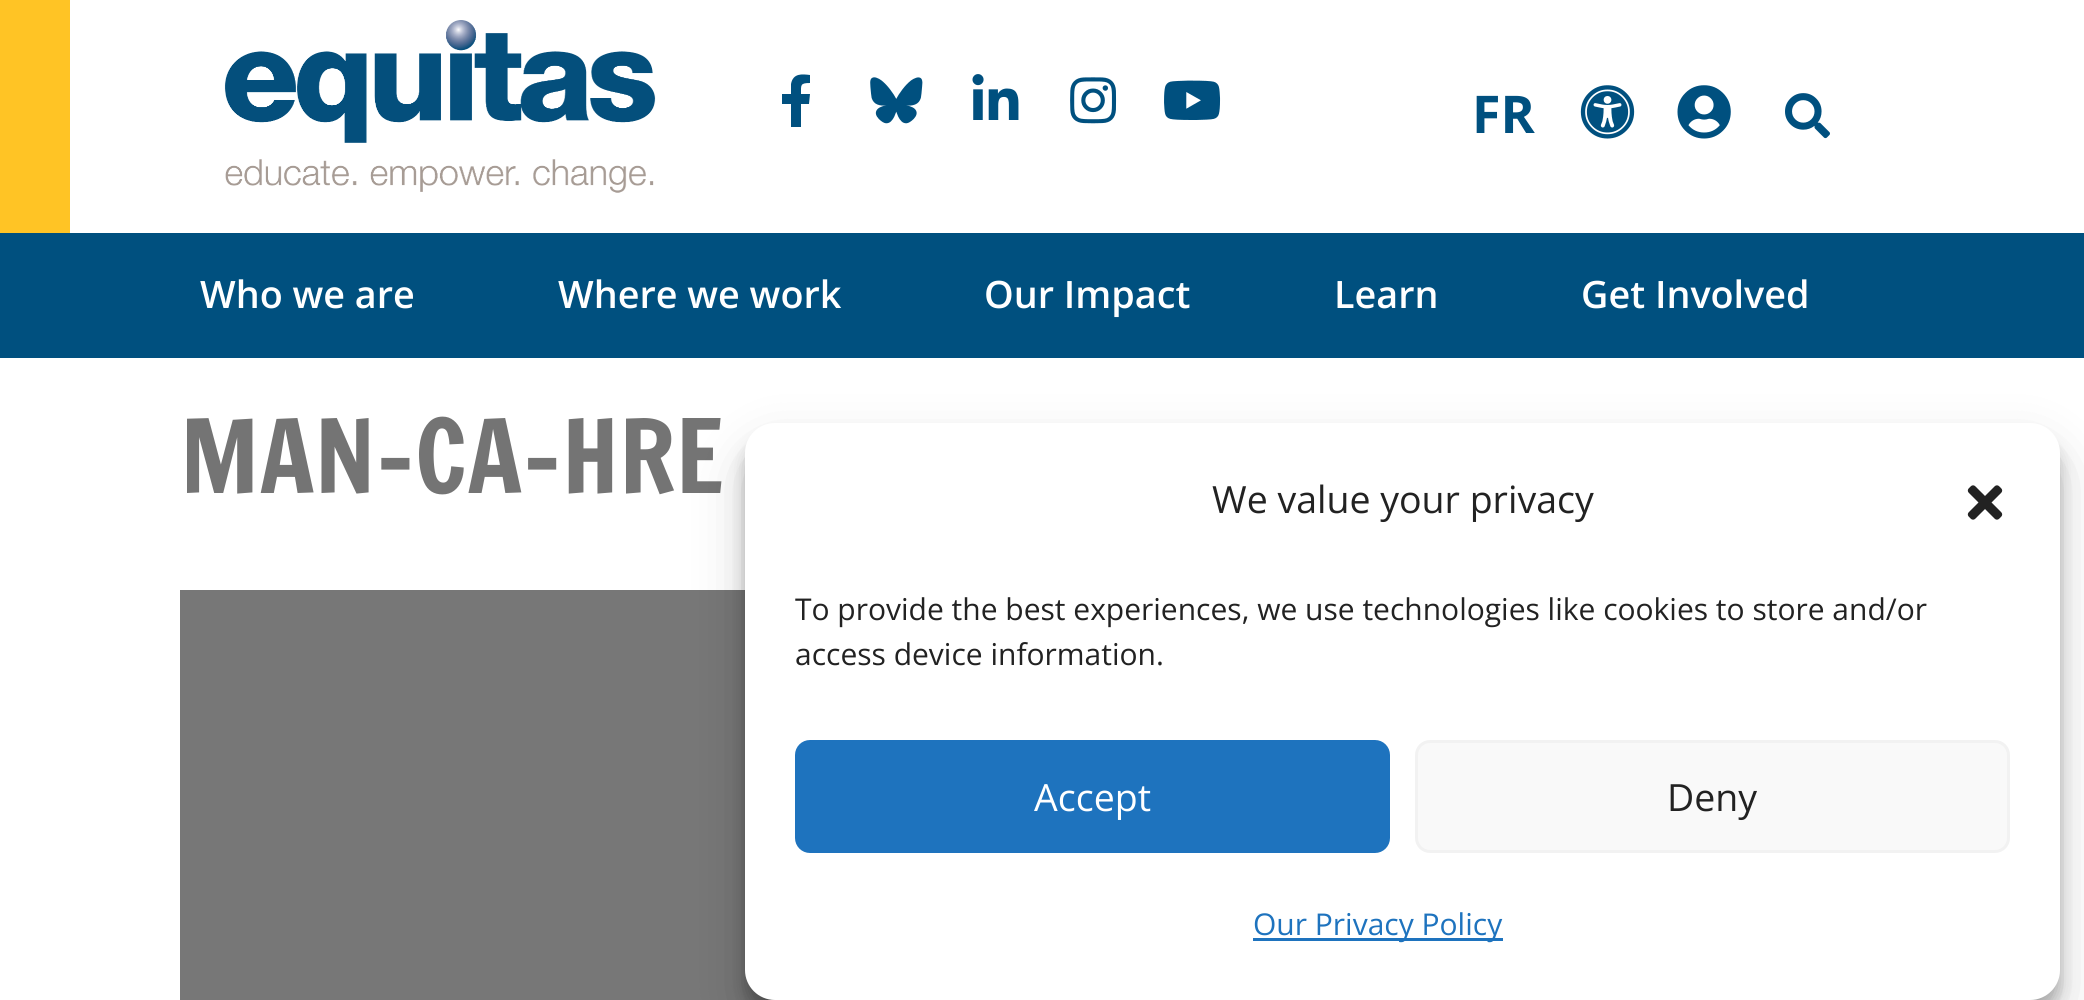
import math
import cairo

surface = cairo.ImageSurface(cairo.FORMAT_RGB24, 2084, 1000)
c = cairo.Context(surface)
options = cairo.FontOptions()
options.set_hint_metrics(cairo.HINT_METRICS_OFF)
options.set_hint_style(cairo.HINT_STYLE_NONE)
c.set_font_options(options)
c.set_miter_limit(4)
def C(code):
 c.set_source_rgb(*(v / 255 for v in bytes.fromhex(code[-6:])))
def F(family, size, italic, bold):
 c.select_font_face(family, cairo.FONT_SLANT_ITALIC if italic else cairo.FONT_SLANT_NORMAL, cairo.FONT_WEIGHT_BOLD if bold else cairo.FONT_WEIGHT_NORMAL)
 c.set_font_size(size)
def T(x, y, s):
 c.move_to(x, y)
 c.show_text(s)
def R(x, y, w, h):
 c.rectangle(x, y, w, h)
 c.fill()
def Q(x, y, w, h, r):
 c.new_sub_path()
 for i, (u, v) in enumerate([(x + w - r, y + h - r), (x + r, y + h - r), (x + r, y + r), (x + w - r, y + r)]):
  c.arc(u, v, r, i * math.pi / 2, (i + 1) * math.pi / 2)
 c.close_path()
def S(x, y, w, h, r, blur, alpha):
 c.push_group_with_content(cairo.CONTENT_ALPHA)
 c.set_operator(cairo.OPERATOR_SOURCE)
 for i in range(15, -16, -2):
  e = blur * i / 6
  if min(w, h) + 2 * e > 0:
   c.set_source_rgba(0, 0, 0, alpha * math.erfc((i - 1) / 8.5) / 2)
   Q(x - e, y - e, w + 2 * e, h + 2 * e, max(0, min(r + e + blur * .6, min(w, h) / 2 + e)))
   c.fill()
 c.mask(c.pop_group())
def I(path, x, y, w, h):
 c.save()
 c.set_source_surface(cairo.ImageSurface.create_from_png(path), x, y)
 c.rectangle(x, y, w, h)
 c.fill()
 c.restore()
C('ffffff')
c.paint()
C('ffc425')
R(0,0,70,233)
I('1.png',224,20,432,173)
C('00507f')
c.new_path()
c.move_to(809,104)
c.line_to(801,104)
c.line_to(801,127)
c.line_to(791,127)
c.line_to(791,104)
c.line_to(782,104)
c.line_to(782,94)
c.line_to(791,94)
c.line_to(791,84)
c.curve_to(793,73,802,74,810,75)
c.line_to(810,83)
c.curve_to(800,83,801,85,801,94)
c.line_to(810,94)
c.close_path()
c.fill()
I('2.png',870,77,53,47)
I('3.png',972,74,47,46)
I('4.png',1070,77,47,47)
I('5.png',1164,80,57,40)
F('Open Sans',52,0,1)
T(1472,133,'FR')
I('6.png',1580,85,55,54)
I('7.png',1677,85,54,54)
I('8.png',1785,93,45,46)
R(0,233,2084,125)
F('Open Sans SemiBold',37.75,0,0)
C('ffffff')
T(200,308,'Who we are')
T(558,308,'Where we work')
T(984,308,'Our Impact')
T(1334,308,'Learn')
T(1581,308,'Get Involved')
F('Francois One',100,0,0)
C('747474')
T(180,493,'MAN-CA-HRE')
C('777777')
R(180,590,595,410)
C('000000')
S(745,438,1315,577,30,7.5,.23)
S(745,448,1315,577,30,25,.19)
C('ffffff')
Q(745,423,1315,577,30)
c.fill()
F('Open Sans',37.5,0,0)
C('222222')
T(1212,513,'We value your privacy')
I('9.png',1967,485,36,35)
F('Open Sans',30,0,0)
T(795,620,'To provide the best experiences, we use technologies like cookies to store and/or')
T(795,665,'access device information.')
C('1e73be')
Q(796.5,741.5,592,110,13.5)
c.fill_preserve()
c.set_line_width(3)
c.stroke()
F('Open Sans',37.5,0,0)
C('ffffff')
T(1034,811,'Accept')
C('f9f9f9')
Q(1416.5,741.5,592,110,13.5)
c.fill_preserve()
C('f2f2f2')
c.stroke()
C('222222')
T(1667,811,'Deny')
C('1e73be')
R(1253,938,250,3)
F('Open Sans',30,0,0)
T(1253,935,'Our Privacy Policy')
surface.write_to_png('o.png')
